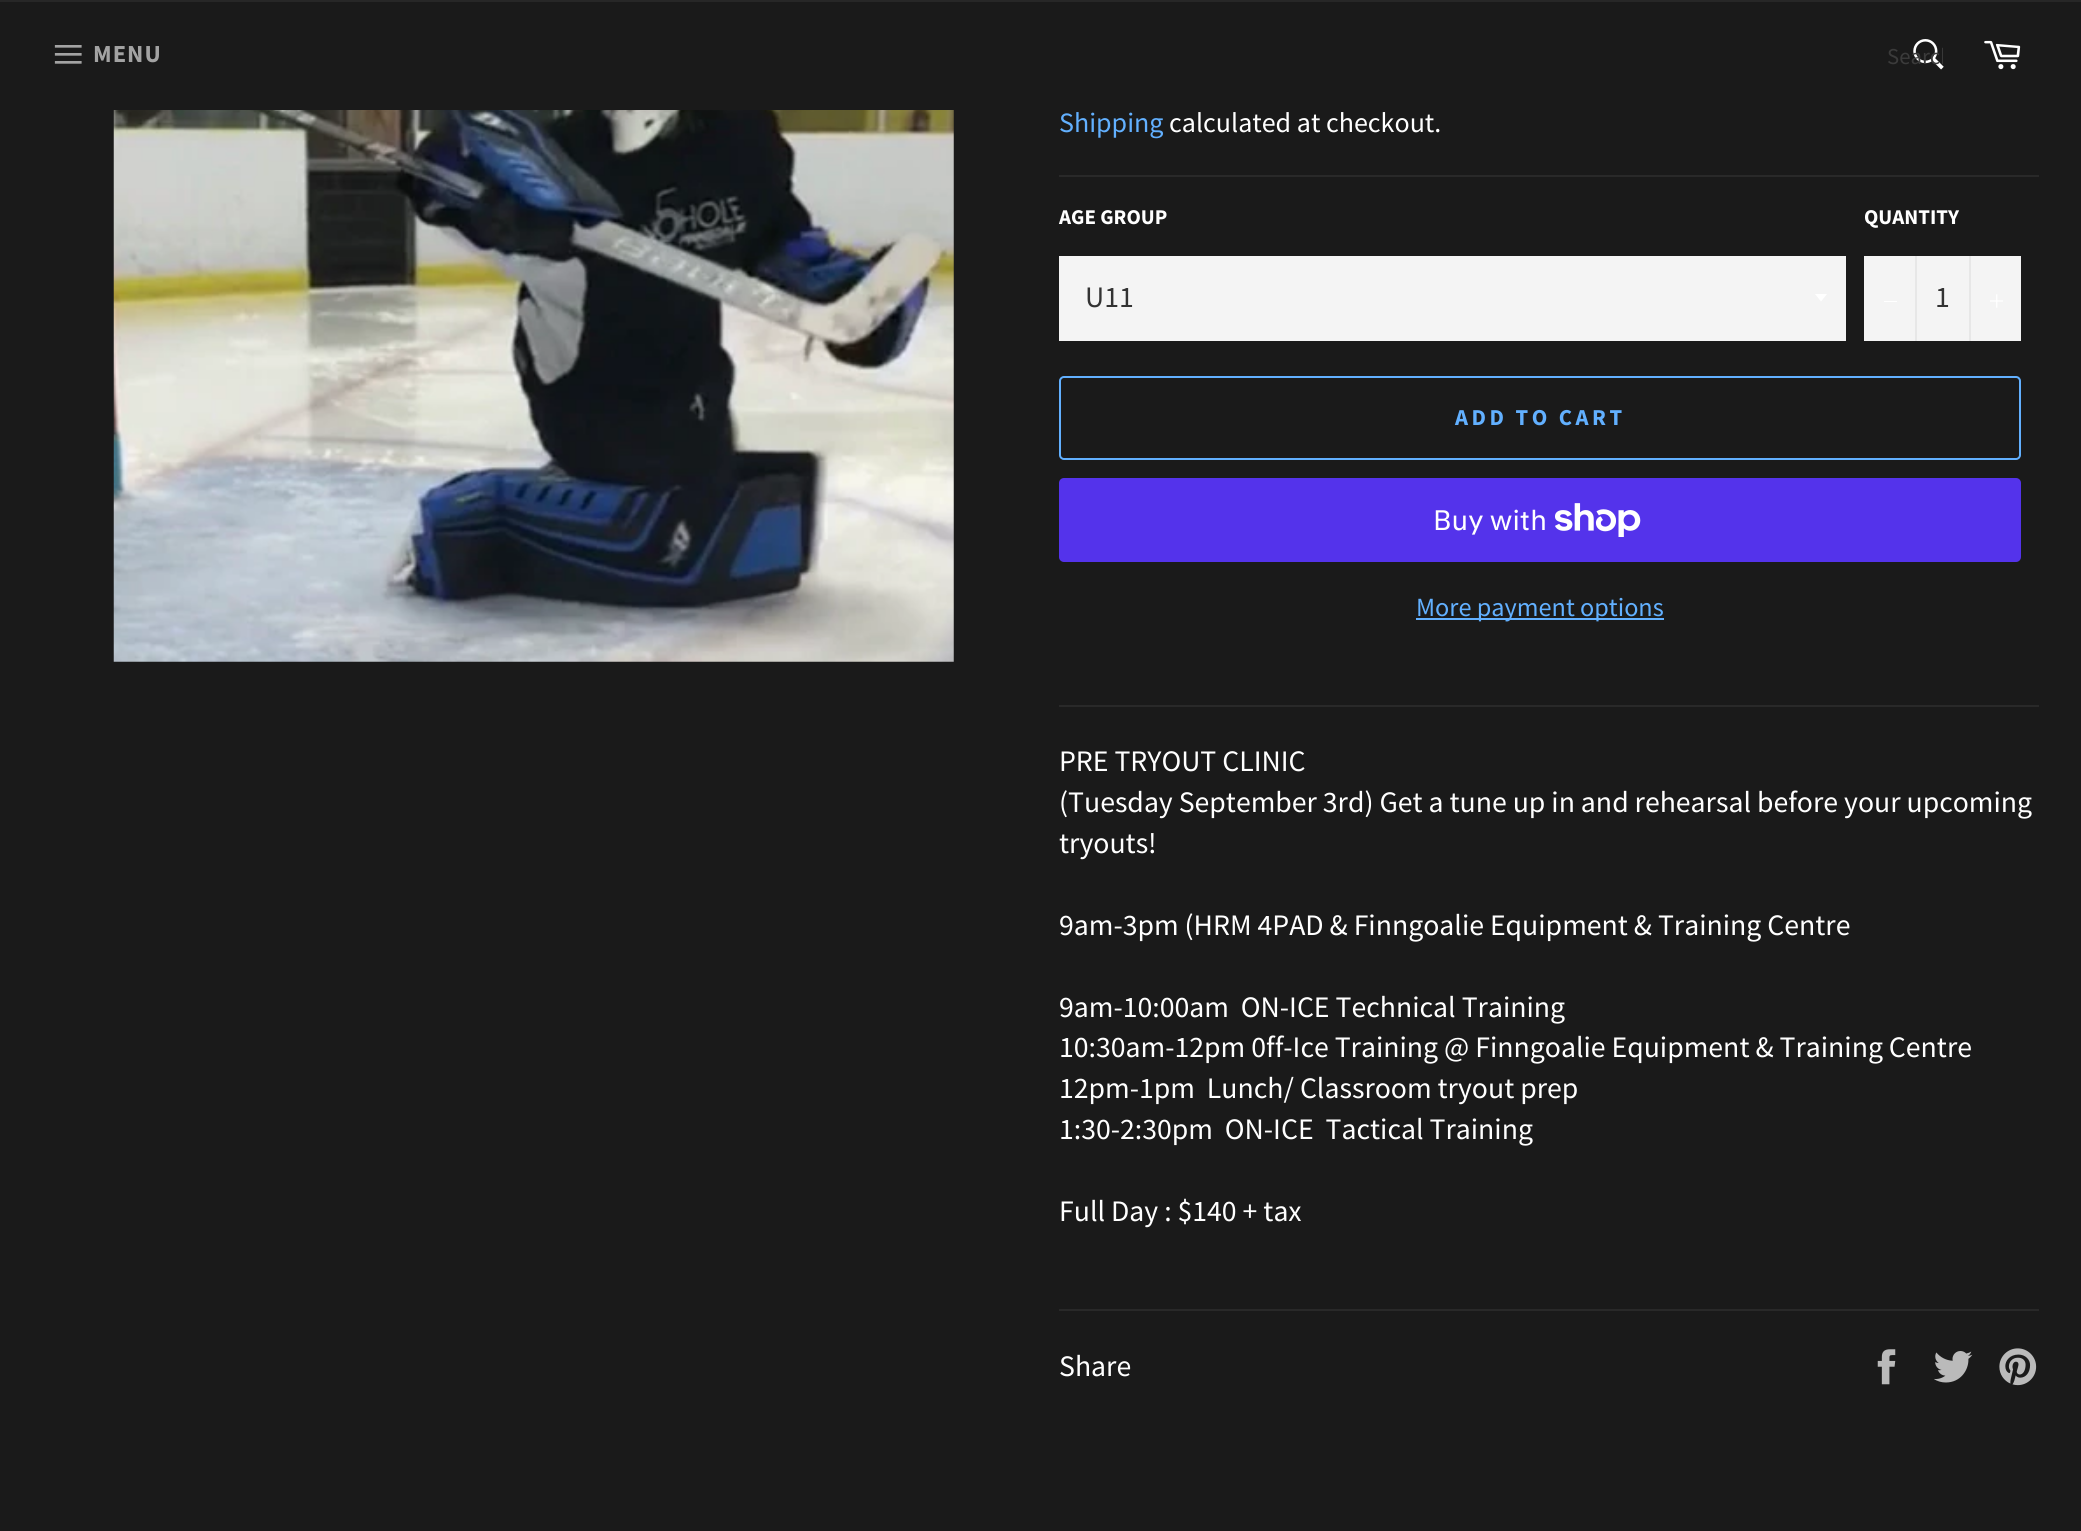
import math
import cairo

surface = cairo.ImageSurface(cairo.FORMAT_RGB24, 2081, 1531)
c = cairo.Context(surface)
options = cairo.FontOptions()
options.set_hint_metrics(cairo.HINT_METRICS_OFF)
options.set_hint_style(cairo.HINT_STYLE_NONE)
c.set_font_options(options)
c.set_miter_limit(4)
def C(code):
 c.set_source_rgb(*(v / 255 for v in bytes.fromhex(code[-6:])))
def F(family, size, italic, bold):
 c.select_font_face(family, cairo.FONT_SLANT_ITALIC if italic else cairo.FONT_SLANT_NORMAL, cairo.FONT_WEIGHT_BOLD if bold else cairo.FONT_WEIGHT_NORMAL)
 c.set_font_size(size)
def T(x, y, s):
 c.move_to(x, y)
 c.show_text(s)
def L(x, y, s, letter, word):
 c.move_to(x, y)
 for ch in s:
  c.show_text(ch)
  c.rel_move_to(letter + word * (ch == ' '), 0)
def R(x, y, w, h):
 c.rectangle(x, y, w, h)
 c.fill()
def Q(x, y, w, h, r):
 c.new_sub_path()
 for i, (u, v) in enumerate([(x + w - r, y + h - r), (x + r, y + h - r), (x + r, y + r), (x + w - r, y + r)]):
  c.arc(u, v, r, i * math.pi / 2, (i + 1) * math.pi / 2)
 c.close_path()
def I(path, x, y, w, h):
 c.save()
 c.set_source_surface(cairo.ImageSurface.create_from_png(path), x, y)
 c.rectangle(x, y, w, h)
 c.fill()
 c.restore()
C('1a1a1a')
c.paint()
C('272727')
R(0,0,2081,2)
I('1.png',54,45,28,19)
F('Source Sans Pro',24.5,0,1)
C('a3a3a3')
L(93,62,'MENU',1,0)
I('2.png',1913,39,31,31)
c.save()
c.rectangle(1887,42,56,30)
c.clip()
F('Source Sans Pro',22.75,0,0)
C('3b3b3b')
T(1887,64,'Search')
c.restore()
I('3.png',1984,40,37,30)
I('4.png',113,110,841,552)
F('Source Sans Pro',28,0,0)
C('62b0ff')
T(1059,132,'Shipping')
C('ffffff')
T(1169,132,'calculated at checkout.')
C('292929')
R(1059,175,980,2)
F('Source Sans Pro',21,0,1)
C('ffffff')
T(1059,224,'AGE GROUP')
C('f4f4f4')
R(1059,256,787,85)
C('ffffff')
c.new_path()
c.move_to(1815,294)
c.line_to(1821,301.5)
c.line_to(1827,294)
c.close_path()
c.fill()
F('Source Sans Pro',29.75,0,0)
C('333333')
T(1085,307,'U11')
F('Source Sans Pro',21,0,1)
C('ffffff')
T(1864,224,'QUANTITY')
C('f4f4f4')
R(1864,256,157,85)
C('e7e7e7')
R(1915,256,2,85)
C('ffffff')
R(1884,301,13,1)
F('Source Sans Pro',29.75,0,0)
C('333333')
T(1935,307,'1')
C('e7e7e7')
R(1969,256,2,85)
I('5.png',1990,294,13,14)
Q(1060,377,960,82,4)
C('62b0ff')
c.stroke()
F('Source Sans Pro',22.75,0,1)
L(1455,425,'ADD TO CART',3.5,0)
C('5433eb')
Q(1059,478,962,84,5)
c.fill()
F('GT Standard',28,0,0)
C('ffffff')
T(1433,530,'Buy with')
I('6.png',1555,503,86,34)
C('62b0ff')
R(1416,618,248,2)
F('Source Sans Pro',26.25,0,0)
T(1416,616,'More payment options')
C('292929')
R(1059,705,980,2)
F('Source Sans Pro',29.75,0,0)
C('ffffff')
T(1059,771,'PRE TRYOUT CLINIC')
T(1059,812,'(Tuesday September 3rd) Get a tune up in and rehearsal before your upcoming')
T(1059,853,'tryouts!')
T(1059,935,'9am-3pm (HRM 4PAD & Finngoalie Equipment & Training Centre')
T(1059,1017,'9am-10:00am  ON-ICE Technical Training')
T(1059,1057,'10:30am-12pm 0ff-Ice Training @ Finngoalie Equipment & Training Centre')
T(1059,1098,'12pm-1pm  Lunch/ Classroom tryout prep')
T(1059,1139,'1:30-2:30pm  ON-ICE  Tactical Training')
T(1059,1221,'Full Day : $140 + tax')
C('292929')
R(1059,1309,980,2)
C('ffffff')
T(1059,1376,'Share')
I('7.png',1877,1349,19,36)
I('8.png',1934,1351,39,32)
I('9.png',1999,1348,38,38)
surface.write_to_png('o.png')
